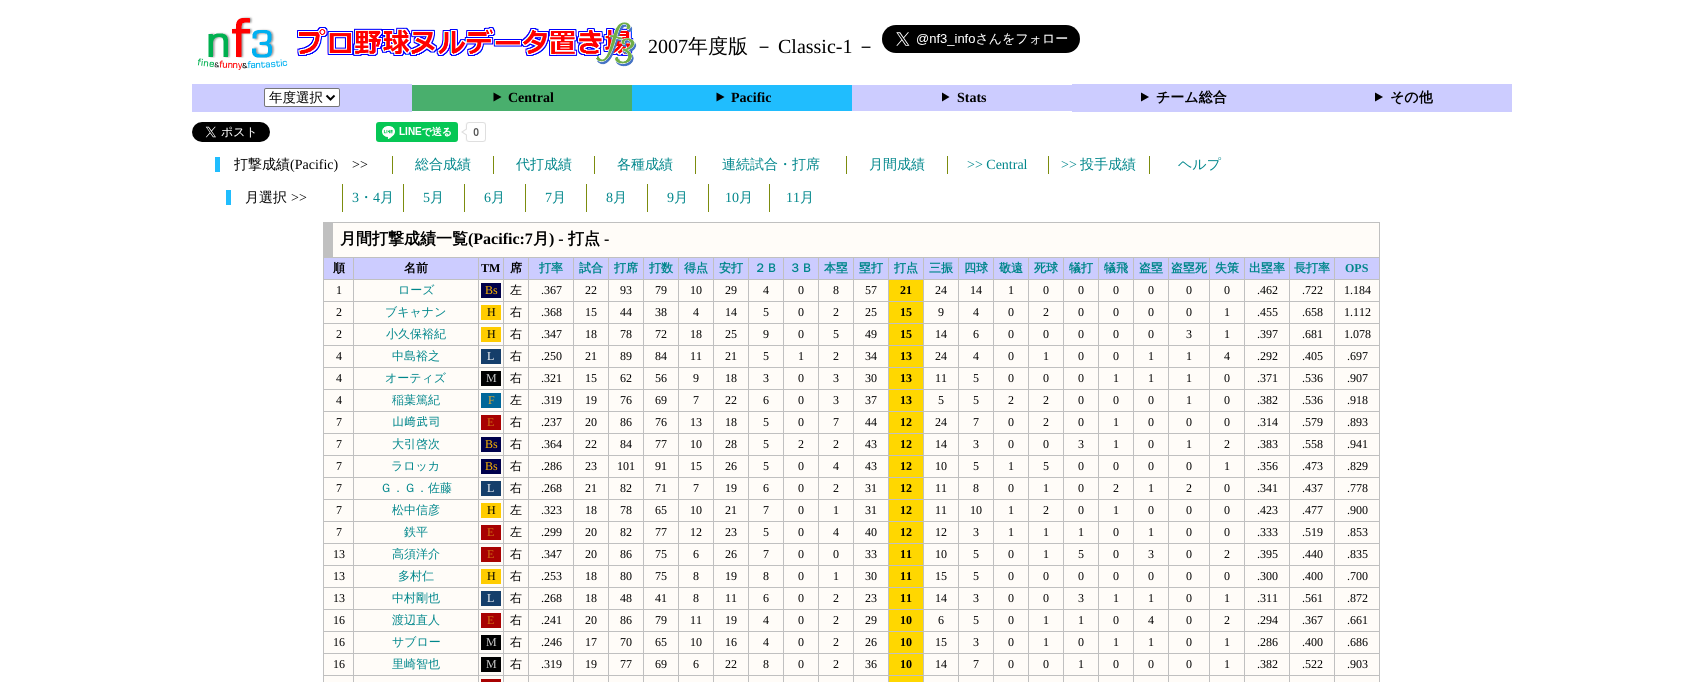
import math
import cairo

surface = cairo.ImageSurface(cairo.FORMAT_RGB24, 1703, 682)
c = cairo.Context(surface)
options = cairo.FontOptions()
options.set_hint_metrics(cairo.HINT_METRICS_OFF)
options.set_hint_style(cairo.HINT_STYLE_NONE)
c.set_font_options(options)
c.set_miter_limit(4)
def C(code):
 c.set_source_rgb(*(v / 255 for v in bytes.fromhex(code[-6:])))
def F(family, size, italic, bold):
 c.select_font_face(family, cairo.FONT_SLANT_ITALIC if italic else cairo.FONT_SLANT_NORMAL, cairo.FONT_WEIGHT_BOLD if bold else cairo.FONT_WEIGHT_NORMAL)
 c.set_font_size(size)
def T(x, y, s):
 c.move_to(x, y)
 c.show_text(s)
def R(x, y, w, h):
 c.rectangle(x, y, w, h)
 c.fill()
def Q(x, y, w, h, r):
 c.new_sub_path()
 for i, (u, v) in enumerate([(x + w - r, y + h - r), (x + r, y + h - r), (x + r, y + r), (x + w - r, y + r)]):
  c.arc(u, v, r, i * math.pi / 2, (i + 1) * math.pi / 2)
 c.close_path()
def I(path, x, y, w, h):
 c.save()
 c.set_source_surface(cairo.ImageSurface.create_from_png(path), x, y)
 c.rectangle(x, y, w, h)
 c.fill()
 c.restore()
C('ffffff')
c.paint()
I('1.png',197,16,91,54)
I('2.png',297,22,340,45)
F('Liberation Serif',20,0,0)
C('000000')
T(648,53,'2007')
F('WenQuanYi Zen Hei Medium',20,0,0)
T(688,53,'年度版 －')
F('Liberation Serif',20,0,0)
T(778,53,'Classic-1')
F('WenQuanYi Zen Hei Medium',20,0,0)
T(856,53,'－')
I('3.png',882,25,198,28)
C('ccccff')
R(192,84,220,28)
C('ffffff')
Q(264.5,88.5,75,18,1.5)
c.fill_preserve()
C('767676')
c.set_line_width(1)
c.stroke()
c.new_path()
c.move_to(326.5,95.5)
c.line_to(330.5,99.5)
c.line_to(334.5,95.5)
C('000000')
c.set_line_width(2)
c.stroke()
F('WenQuanYi Zen Hei Medium',13.5,0,0)
T(269,102,'年度選択')
C('49af6d')
R(412,85,220,26)
C('000000')
c.new_path()
c.move_to(493.5,92.5)
c.line_to(501.5,97)
c.line_to(493.5,101.5)
c.close_path()
c.fill()
F('Liberation Serif',14,0,1)
T(508,102,'Central')
C('20bdfe')
R(632,85,220,26)
C('000000')
c.new_path()
c.move_to(716.5,92.5)
c.line_to(724.5,97)
c.line_to(716.5,101.5)
c.close_path()
c.fill()
T(731,102,'Pacific')
C('ccccff')
R(852,85,220,26)
C('000000')
c.new_path()
c.move_to(942,92.5)
c.line_to(949.5,97)
c.line_to(942,101.5)
c.close_path()
c.fill()
T(957,102,'Stats')
C('ccccff')
R(1072,84,440,28)
C('000000')
c.new_path()
c.move_to(1141,92.5)
c.line_to(1149,97)
c.line_to(1141,101.5)
c.close_path()
c.fill()
F('WenQuanYi Zen Hei',14,0,1)
T(1156,102,'チーム総合')
c.new_path()
c.move_to(1375,92.5)
c.line_to(1383,97)
c.line_to(1375,101.5)
c.close_path()
c.fill()
T(1390,102,'その他')
I('4.png',192,122,78,20)
I('5.png',376,122,110,20)
F('WenQuanYi Zen Hei Medium',14,0,0)
T(234,169,'打撃成績')
C('20bdfe')
R(215,157,5,15)
F('Liberation Serif',14,0,0)
C('000000')
T(290,169,'(Pacific)')
T(352,169,'>>')
C('7c8c0e')
R(392,156,1,18)
F('WenQuanYi Zen Hei Medium',14,0,0)
C('00868b')
T(415,169,'総合成績')
C('7c8c0e')
R(493,156,1,18)
C('00868b')
T(516,169,'代打成績')
C('7c8c0e')
R(594,156,1,18)
C('00868b')
T(617,169,'各種成績')
C('7c8c0e')
R(695,156,1,18)
C('00868b')
T(722,169,'連続試合・打席')
C('7c8c0e')
R(846,156,1,18)
C('00868b')
T(869,169,'月間成績')
C('7c8c0e')
R(947,156,1,18)
F('Liberation Serif',14,0,0)
C('00868b')
T(967,169,'>> Central')
C('7c8c0e')
R(1048,156,1,18)
C('00868b')
T(1061,169,'>>')
F('WenQuanYi Zen Hei Medium',14,0,0)
T(1080,169,'投手成績')
C('7c8c0e')
R(1149,156,1,18)
C('00868b')
T(1178,169,'ヘルプ')
C('000000')
T(245,202,'月選択')
C('20bdfe')
R(226,190,5,15)
F('Liberation Serif',14,0,0)
C('000000')
T(291,202,'>>')
C('7c8c0e')
R(342,184,1,28)
C('00868b')
T(352,202,'3')
F('WenQuanYi Zen Hei Medium',14,0,0)
T(359,202,'・')
F('Liberation Serif',14,0,0)
T(373,202,'4')
F('WenQuanYi Zen Hei Medium',14,0,0)
T(380,202,'月')
C('7c8c0e')
R(403,184,1,28)
F('Liberation Serif',14,0,0)
C('00868b')
T(423,202,'5')
F('WenQuanYi Zen Hei Medium',14,0,0)
T(430,202,'月')
C('7c8c0e')
R(464,184,1,28)
F('Liberation Serif',14,0,0)
C('00868b')
T(484,202,'6')
F('WenQuanYi Zen Hei Medium',14,0,0)
T(491,202,'月')
C('7c8c0e')
R(525,184,1,28)
F('Liberation Serif',14,0,0)
C('00868b')
T(545,202,'7')
F('WenQuanYi Zen Hei Medium',14,0,0)
T(552,202,'月')
C('7c8c0e')
R(586,184,1,28)
F('Liberation Serif',14,0,0)
C('00868b')
T(606,202,'8')
F('WenQuanYi Zen Hei Medium',14,0,0)
T(613,202,'月')
C('7c8c0e')
R(647,184,1,28)
F('Liberation Serif',14,0,0)
C('00868b')
T(667,202,'9')
F('WenQuanYi Zen Hei Medium',14,0,0)
T(674,202,'月')
C('7c8c0e')
R(708,184,1,28)
F('Liberation Serif',14,0,0)
C('00868b')
T(725,202,'10')
F('WenQuanYi Zen Hei Medium',14,0,0)
T(739,202,'月')
C('7c8c0e')
R(769,184,1,28)
F('Liberation Serif',14,0,0)
C('00868b')
T(786,202,'11')
F('WenQuanYi Zen Hei Medium',14,0,0)
T(800,202,'月')
C('fffcf8')
R(324,223,1055,459)
C('c0c0c0')
R(323,222,1057,1)
R(1379,222,1,460)
R(323,222,1,460)
R(324,223,9,34)
F('WenQuanYi Zen Hei',16,0,1)
C('000000')
T(340,244,'月間打撃成績一覧')
F('Liberation Serif',16,0,1)
T(468,244,'(Pacific:7')
F('WenQuanYi Zen Hei',16,0,1)
T(533,244,'月')
F('Liberation Serif',16,0,1)
T(549,244,') -')
F('WenQuanYi Zen Hei',16,0,1)
T(568,244,'打点')
F('Liberation Serif',16,0,1)
T(604,244,'-')
C('ccccff')
R(324,258,1055,21)
C('c0c0c0')
R(1334,257,46,1)
R(1334,279,46,1)
R(1334,301,46,1)
R(1334,323,46,1)
R(1334,345,46,1)
R(1334,367,46,1)
R(1334,389,46,1)
R(1334,411,46,1)
R(1334,433,46,1)
R(1334,455,46,1)
R(1334,477,46,1)
R(1334,499,46,1)
R(1334,521,46,1)
R(1334,543,46,1)
R(1334,565,46,1)
R(1334,587,46,1)
R(1334,609,46,1)
R(1334,631,46,1)
R(1334,653,46,1)
R(1334,675,46,1)
R(1334,675,1,7)
R(1289,675,46,1)
R(1334,653,1,23)
R(1289,653,46,1)
R(1334,631,1,23)
R(1289,631,46,1)
R(1334,609,1,23)
R(1289,609,46,1)
R(1334,587,1,23)
R(1289,587,46,1)
R(1334,565,1,23)
R(1289,565,46,1)
R(1334,543,1,23)
R(1289,543,46,1)
R(1334,521,1,23)
R(1289,521,46,1)
R(1334,499,1,23)
R(1289,499,46,1)
R(1334,477,1,23)
R(1289,477,46,1)
R(1334,455,1,23)
R(1289,455,46,1)
R(1334,433,1,23)
R(1289,433,46,1)
R(1334,411,1,23)
R(1289,411,46,1)
R(1334,389,1,23)
R(1289,389,46,1)
R(1334,367,1,23)
R(1289,367,46,1)
R(1334,345,1,23)
R(1289,345,46,1)
R(1334,323,1,23)
R(1289,323,46,1)
R(1334,301,1,23)
R(1289,301,46,1)
R(1334,279,1,23)
R(1289,279,46,1)
R(1334,257,1,23)
R(1289,257,46,1)
R(1289,675,1,7)
R(1244,675,46,1)
R(1289,653,1,23)
R(1244,653,46,1)
R(1289,631,1,23)
R(1244,631,46,1)
R(1289,609,1,23)
R(1244,609,46,1)
R(1289,587,1,23)
R(1244,587,46,1)
R(1289,565,1,23)
R(1244,565,46,1)
R(1289,543,1,23)
R(1244,543,46,1)
R(1289,521,1,23)
R(1244,521,46,1)
R(1289,499,1,23)
R(1244,499,46,1)
R(1289,477,1,23)
R(1244,477,46,1)
R(1289,455,1,23)
R(1244,455,46,1)
R(1289,433,1,23)
R(1244,433,46,1)
R(1289,411,1,23)
R(1244,411,46,1)
R(1289,389,1,23)
R(1244,389,46,1)
R(1289,367,1,23)
R(1244,367,46,1)
R(1289,345,1,23)
R(1244,345,46,1)
R(1289,323,1,23)
R(1244,323,46,1)
R(1289,301,1,23)
R(1244,301,46,1)
R(1289,279,1,23)
R(1244,279,46,1)
R(1289,257,1,23)
R(1244,257,46,1)
R(1244,675,1,7)
R(1209,675,36,1)
R(1244,653,1,23)
R(1209,653,36,1)
R(1244,631,1,23)
R(1209,631,36,1)
R(1244,609,1,23)
R(1209,609,36,1)
R(1244,587,1,23)
R(1209,587,36,1)
R(1244,565,1,23)
R(1209,565,36,1)
R(1244,543,1,23)
R(1209,543,36,1)
R(1244,521,1,23)
R(1209,521,36,1)
R(1244,499,1,23)
R(1209,499,36,1)
R(1244,477,1,23)
R(1209,477,36,1)
R(1244,455,1,23)
R(1209,455,36,1)
R(1244,433,1,23)
R(1209,433,36,1)
R(1244,411,1,23)
R(1209,411,36,1)
R(1244,389,1,23)
R(1209,389,36,1)
R(1244,367,1,23)
R(1209,367,36,1)
R(1244,345,1,23)
R(1209,345,36,1)
R(1244,323,1,23)
R(1209,323,36,1)
R(1244,301,1,23)
R(1209,301,36,1)
R(1244,279,1,23)
R(1209,279,36,1)
R(1244,257,1,23)
R(1209,257,36,1)
R(1209,675,1,7)
R(1168,675,42,1)
R(1209,653,1,23)
R(1168,653,42,1)
R(1209,631,1,23)
R(1168,631,42,1)
R(1209,609,1,23)
R(1168,609,42,1)
R(1209,587,1,23)
R(1168,587,42,1)
R(1209,565,1,23)
R(1168,565,42,1)
R(1209,543,1,23)
R(1168,543,42,1)
R(1209,521,1,23)
R(1168,521,42,1)
R(1209,499,1,23)
R(1168,499,42,1)
R(1209,477,1,23)
R(1168,477,42,1)
R(1209,455,1,23)
R(1168,455,42,1)
R(1209,433,1,23)
R(1168,433,42,1)
R(1209,411,1,23)
R(1168,411,42,1)
R(1209,389,1,23)
R(1168,389,42,1)
R(1209,367,1,23)
R(1168,367,42,1)
R(1209,345,1,23)
R(1168,345,42,1)
R(1209,323,1,23)
R(1168,323,42,1)
R(1209,301,1,23)
R(1168,301,42,1)
R(1209,279,1,23)
R(1168,279,42,1)
R(1209,257,1,23)
R(1168,257,42,1)
R(1168,675,1,7)
R(1133,675,36,1)
R(1168,653,1,23)
R(1133,653,36,1)
R(1168,631,1,23)
R(1133,631,36,1)
R(1168,609,1,23)
R(1133,609,36,1)
R(1168,587,1,23)
R(1133,587,36,1)
R(1168,565,1,23)
R(1133,565,36,1)
R(1168,543,1,23)
R(1133,543,36,1)
R(1168,521,1,23)
R(1133,521,36,1)
R(1168,499,1,23)
R(1133,499,36,1)
R(1168,477,1,23)
R(1133,477,36,1)
R(1168,455,1,23)
R(1133,455,36,1)
R(1168,433,1,23)
R(1133,433,36,1)
R(1168,411,1,23)
R(1133,411,36,1)
R(1168,389,1,23)
R(1133,389,36,1)
R(1168,367,1,23)
R(1133,367,36,1)
R(1168,345,1,23)
R(1133,345,36,1)
R(1168,323,1,23)
R(1133,323,36,1)
R(1168,301,1,23)
R(1133,301,36,1)
R(1168,279,1,23)
R(1133,279,36,1)
R(1168,257,1,23)
R(1133,257,36,1)
R(1133,675,1,7)
R(1098,675,36,1)
R(1133,653,1,23)
R(1098,653,36,1)
R(1133,631,1,23)
R(1098,631,36,1)
R(1133,609,1,23)
R(1098,609,36,1)
R(1133,587,1,23)
R(1098,587,36,1)
R(1133,565,1,23)
R(1098,565,36,1)
R(1133,543,1,23)
R(1098,543,36,1)
R(1133,521,1,23)
R(1098,521,36,1)
R(1133,499,1,23)
R(1098,499,36,1)
R(1133,477,1,23)
R(1098,477,36,1)
R(1133,455,1,23)
R(1098,455,36,1)
R(1133,433,1,23)
R(1098,433,36,1)
R(1133,411,1,23)
R(1098,411,36,1)
R(1133,389,1,23)
R(1098,389,36,1)
R(1133,367,1,23)
R(1098,367,36,1)
R(1133,345,1,23)
R(1098,345,36,1)
R(1133,323,1,23)
R(1098,323,36,1)
R(1133,301,1,23)
R(1098,301,36,1)
R(1133,279,1,23)
R(1098,279,36,1)
R(1133,257,1,23)
R(1098,257,36,1)
R(1098,675,1,7)
R(1063,675,36,1)
R(1098,653,1,23)
R(1063,653,36,1)
R(1098,631,1,23)
R(1063,631,36,1)
R(1098,609,1,23)
R(1063,609,36,1)
R(1098,587,1,23)
R(1063,587,36,1)
R(1098,565,1,23)
R(1063,565,36,1)
R(1098,543,1,23)
R(1063,543,36,1)
R(1098,521,1,23)
R(1063,521,36,1)
R(1098,499,1,23)
R(1063,499,36,1)
R(1098,477,1,23)
R(1063,477,36,1)
R(1098,455,1,23)
R(1063,455,36,1)
R(1098,433,1,23)
R(1063,433,36,1)
R(1098,411,1,23)
R(1063,411,36,1)
R(1098,389,1,23)
R(1063,389,36,1)
R(1098,367,1,23)
R(1063,367,36,1)
R(1098,345,1,23)
R(1063,345,36,1)
R(1098,323,1,23)
R(1063,323,36,1)
R(1098,301,1,23)
R(1063,301,36,1)
R(1098,279,1,23)
R(1063,279,36,1)
R(1098,257,1,23)
R(1063,257,36,1)
R(1063,675,1,7)
R(1028,675,36,1)
R(1063,653,1,23)
R(1028,653,36,1)
R(1063,631,1,23)
R(1028,631,36,1)
R(1063,609,1,23)
R(1028,609,36,1)
R(1063,587,1,23)
R(1028,587,36,1)
R(1063,565,1,23)
R(1028,565,36,1)
R(1063,543,1,23)
R(1028,543,36,1)
R(1063,521,1,23)
R(1028,521,36,1)
R(1063,499,1,23)
R(1028,499,36,1)
R(1063,477,1,23)
R(1028,477,36,1)
R(1063,455,1,23)
R(1028,455,36,1)
R(1063,433,1,23)
R(1028,433,36,1)
R(1063,411,1,23)
R(1028,411,36,1)
R(1063,389,1,23)
R(1028,389,36,1)
R(1063,367,1,23)
R(1028,367,36,1)
R(1063,345,1,23)
R(1028,345,36,1)
R(1063,323,1,23)
R(1028,323,36,1)
R(1063,301,1,23)
R(1028,301,36,1)
R(1063,279,1,23)
R(1028,279,36,1)
R(1063,257,1,23)
R(1028,257,36,1)
R(1028,675,1,7)
R(993,675,36,1)
R(1028,653,1,23)
R(993,653,36,1)
R(1028,631,1,23)
R(993,631,36,1)
R(1028,609,1,23)
R(993,609,36,1)
R(1028,587,1,23)
R(993,587,36,1)
R(1028,565,1,23)
R(993,565,36,1)
R(1028,543,1,23)
R(993,543,36,1)
R(1028,521,1,23)
R(993,521,36,1)
R(1028,499,1,23)
R(993,499,36,1)
R(1028,477,1,23)
R(993,477,36,1)
R(1028,455,1,23)
R(993,455,36,1)
R(1028,433,1,23)
R(993,433,36,1)
R(1028,411,1,23)
R(993,411,36,1)
R(1028,389,1,23)
R(993,389,36,1)
R(1028,367,1,23)
R(993,367,36,1)
R(1028,345,1,23)
R(993,345,36,1)
R(1028,323,1,23)
R(993,323,36,1)
R(1028,301,1,23)
R(993,301,36,1)
R(1028,279,1,23)
R(993,279,36,1)
R(1028,257,1,23)
R(993,257,36,1)
R(993,675,1,7)
R(958,675,36,1)
R(993,653,1,23)
R(958,653,36,1)
R(993,631,1,23)
R(958,631,36,1)
R(993,609,1,23)
R(958,609,36,1)
R(993,587,1,23)
R(958,587,36,1)
R(993,565,1,23)
R(958,565,36,1)
R(993,543,1,23)
R(958,543,36,1)
R(993,521,1,23)
R(958,521,36,1)
R(993,499,1,23)
R(958,499,36,1)
R(993,477,1,23)
R(958,477,36,1)
R(993,455,1,23)
R(958,455,36,1)
R(993,433,1,23)
R(958,433,36,1)
R(993,411,1,23)
R(958,411,36,1)
R(993,389,1,23)
R(958,389,36,1)
R(993,367,1,23)
R(958,367,36,1)
R(993,345,1,23)
R(958,345,36,1)
R(993,323,1,23)
R(958,323,36,1)
R(993,301,1,23)
R(958,301,36,1)
R(993,279,1,23)
R(958,279,36,1)
R(993,257,1,23)
R(958,257,36,1)
R(958,675,1,7)
R(923,675,36,1)
R(958,653,1,23)
R(923,653,36,1)
R(958,631,1,23)
R(923,631,36,1)
R(958,609,1,23)
R(923,609,36,1)
R(958,587,1,23)
R(923,587,36,1)
R(958,565,1,23)
R(923,565,36,1)
R(958,543,1,23)
R(923,543,36,1)
R(958,521,1,23)
R(923,521,36,1)
R(958,499,1,23)
R(923,499,36,1)
R(958,477,1,23)
R(923,477,36,1)
R(958,455,1,23)
R(923,455,36,1)
R(958,433,1,23)
R(923,433,36,1)
R(958,411,1,23)
R(923,411,36,1)
R(958,389,1,23)
R(923,389,36,1)
R(958,367,1,23)
R(923,367,36,1)
R(958,345,1,23)
R(923,345,36,1)
R(958,323,1,23)
R(923,323,36,1)
R(958,301,1,23)
R(923,301,36,1)
R(958,279,1,23)
R(923,279,36,1)
R(958,257,1,23)
R(923,257,36,1)
C('ffd700')
R(889,676,35,6)
C('c0c0c0')
R(923,675,1,7)
R(888,675,36,1)
R(923,653,1,23)
R(888,653,36,1)
R(923,631,1,23)
R(888,631,36,1)
R(923,609,1,23)
R(888,609,36,1)
R(923,587,1,23)
R(888,587,36,1)
R(923,565,1,23)
R(888,565,36,1)
R(923,543,1,23)
R(888,543,36,1)
R(923,521,1,23)
R(888,521,36,1)
R(923,499,1,23)
R(888,499,36,1)
R(923,477,1,23)
R(888,477,36,1)
R(923,455,1,23)
R(888,455,36,1)
R(923,433,1,23)
R(888,433,36,1)
R(923,411,1,23)
R(888,411,36,1)
R(923,389,1,23)
R(888,389,36,1)
R(923,367,1,23)
R(888,367,36,1)
R(923,345,1,23)
R(888,345,36,1)
R(923,323,1,23)
R(888,323,36,1)
R(923,301,1,23)
R(888,301,36,1)
R(923,279,1,23)
R(888,279,36,1)
R(923,257,1,23)
R(888,257,36,1)
R(888,675,1,7)
R(853,675,36,1)
R(888,653,1,23)
R(853,653,36,1)
R(888,631,1,23)
R(853,631,36,1)
R(888,609,1,23)
R(853,609,36,1)
R(888,587,1,23)
R(853,587,36,1)
R(888,565,1,23)
R(853,565,36,1)
R(888,543,1,23)
R(853,543,36,1)
R(888,521,1,23)
R(853,521,36,1)
R(888,499,1,23)
R(853,499,36,1)
R(888,477,1,23)
R(853,477,36,1)
R(888,455,1,23)
R(853,455,36,1)
R(888,433,1,23)
R(853,433,36,1)
R(888,411,1,23)
R(853,411,36,1)
R(888,389,1,23)
R(853,389,36,1)
R(888,367,1,23)
R(853,367,36,1)
R(888,345,1,23)
R(853,345,36,1)
R(888,323,1,23)
R(853,323,36,1)
R(888,301,1,23)
R(853,301,36,1)
R(888,279,1,23)
R(853,279,36,1)
R(888,257,1,23)
R(853,257,36,1)
R(853,675,1,7)
R(818,675,36,1)
R(853,653,1,23)
R(818,653,36,1)
R(853,631,1,23)
R(818,631,36,1)
R(853,609,1,23)
R(818,609,36,1)
R(853,587,1,23)
R(818,587,36,1)
R(853,565,1,23)
R(818,565,36,1)
R(853,543,1,23)
R(818,543,36,1)
R(853,521,1,23)
R(818,521,36,1)
R(853,499,1,23)
R(818,499,36,1)
R(853,477,1,23)
R(818,477,36,1)
R(853,455,1,23)
R(818,455,36,1)
R(853,433,1,23)
R(818,433,36,1)
R(853,411,1,23)
R(818,411,36,1)
R(853,389,1,23)
R(818,389,36,1)
R(853,367,1,23)
R(818,367,36,1)
R(853,345,1,23)
R(818,345,36,1)
R(853,323,1,23)
R(818,323,36,1)
R(853,301,1,23)
R(818,301,36,1)
R(853,279,1,23)
R(818,279,36,1)
R(853,257,1,23)
R(818,257,36,1)
R(818,675,1,7)
R(783,675,36,1)
R(818,653,1,23)
R(783,653,36,1)
R(818,631,1,23)
R(783,631,36,1)
R(818,609,1,23)
R(783,609,36,1)
R(818,587,1,23)
R(783,587,36,1)
R(818,565,1,23)
R(783,565,36,1)
R(818,543,1,23)
R(783,543,36,1)
R(818,521,1,23)
R(783,521,36,1)
R(818,499,1,23)
R(783,499,36,1)
R(818,477,1,23)
R(783,477,36,1)
R(818,455,1,23)
R(783,455,36,1)
R(818,433,1,23)
R(783,433,36,1)
R(818,411,1,23)
R(783,411,36,1)
R(818,389,1,23)
R(783,389,36,1)
R(818,367,1,23)
R(783,367,36,1)
R(818,345,1,23)
R(783,345,36,1)
R(818,323,1,23)
R(783,323,36,1)
R(818,301,1,23)
R(783,301,36,1)
R(818,279,1,23)
R(783,279,36,1)
R(818,257,1,23)
R(783,257,36,1)
R(783,675,1,7)
R(748,675,36,1)
R(783,653,1,23)
R(748,653,36,1)
R(783,631,1,23)
R(748,631,36,1)
R(783,609,1,23)
R(748,609,36,1)
R(783,587,1,23)
R(748,587,36,1)
R(783,565,1,23)
R(748,565,36,1)
R(783,543,1,23)
R(748,543,36,1)
R(783,521,1,23)
R(748,521,36,1)
R(783,499,1,23)
R(748,499,36,1)
R(783,477,1,23)
R(748,477,36,1)
R(783,455,1,23)
R(748,455,36,1)
R(783,433,1,23)
R(748,433,36,1)
R(783,411,1,23)
R(748,411,36,1)
R(783,389,1,23)
R(748,389,36,1)
R(783,367,1,23)
R(748,367,36,1)
R(783,345,1,23)
R(748,345,36,1)
R(783,323,1,23)
R(748,323,36,1)
R(783,301,1,23)
R(748,301,36,1)
R(783,279,1,23)
R(748,279,36,1)
R(783,257,1,23)
R(748,257,36,1)
R(748,675,1,7)
R(713,675,36,1)
R(748,653,1,23)
R(713,653,36,1)
R(748,631,1,23)
R(713,631,36,1)
R(748,609,1,23)
R(713,609,36,1)
R(748,587,1,23)
R(713,587,36,1)
R(748,565,1,23)
R(713,565,36,1)
R(748,543,1,23)
R(713,543,36,1)
R(748,521,1,23)
R(713,521,36,1)
R(748,499,1,23)
R(713,499,36,1)
R(748,477,1,23)
R(713,477,36,1)
R(748,455,1,23)
R(713,455,36,1)
R(748,433,1,23)
R(713,433,36,1)
R(748,411,1,23)
R(713,411,36,1)
R(748,389,1,23)
R(713,389,36,1)
R(748,367,1,23)
R(713,367,36,1)
R(748,345,1,23)
R(713,345,36,1)
R(748,323,1,23)
R(713,323,36,1)
R(748,301,1,23)
R(713,301,36,1)
R(748,279,1,23)
R(713,279,36,1)
R(748,257,1,23)
R(713,257,36,1)
R(713,675,1,7)
R(678,675,36,1)
R(713,653,1,23)
R(678,653,36,1)
R(713,631,1,23)
R(678,631,36,1)
R(713,609,1,23)
R(678,609,36,1)
R(713,587,1,23)
R(678,587,36,1)
R(713,565,1,23)
R(678,565,36,1)
R(713,543,1,23)
R(678,543,36,1)
R(713,521,1,23)
R(678,521,36,1)
R(713,499,1,23)
R(678,499,36,1)
R(713,477,1,23)
R(678,477,36,1)
R(713,455,1,23)
R(678,455,36,1)
R(713,433,1,23)
R(678,433,36,1)
R(713,411,1,23)
R(678,411,36,1)
R(713,389,1,23)
R(678,389,36,1)
R(713,367,1,23)
R(678,367,36,1)
R(713,345,1,23)
R(678,345,36,1)
R(713,323,1,23)
R(678,323,36,1)
R(713,301,1,23)
R(678,301,36,1)
R(713,279,1,23)
R(678,279,36,1)
R(713,257,1,23)
R(678,257,36,1)
R(678,675,1,7)
R(643,675,36,1)
R(678,653,1,23)
R(643,653,36,1)
R(678,631,1,23)
R(643,631,36,1)
R(678,609,1,23)
R(643,609,36,1)
R(678,587,1,23)
R(643,587,36,1)
R(678,565,1,23)
R(643,565,36,1)
R(678,543,1,23)
R(643,543,36,1)
R(678,521,1,23)
R(643,521,36,1)
R(678,499,1,23)
R(643,499,36,1)
R(678,477,1,23)
R(643,477,36,1)
R(678,455,1,23)
R(643,455,36,1)
R(678,433,1,23)
R(643,433,36,1)
R(678,411,1,23)
R(643,411,36,1)
R(678,389,1,23)
R(643,389,36,1)
R(678,367,1,23)
R(643,367,36,1)
R(678,345,1,23)
R(643,345,36,1)
R(678,323,1,23)
R(643,323,36,1)
R(678,301,1,23)
R(643,301,36,1)
R(678,279,1,23)
R(643,279,36,1)
R(678,257,1,23)
R(643,257,36,1)
R(643,675,1,7)
R(608,675,36,1)
R(643,653,1,23)
R(608,653,36,1)
R(643,631,1,23)
R(608,631,36,1)
R(643,609,1,23)
R(608,609,36,1)
R(643,587,1,23)
R(608,587,36,1)
R(643,565,1,23)
R(608,565,36,1)
R(643,543,1,23)
R(608,543,36,1)
R(643,521,1,23)
R(608,521,36,1)
R(643,499,1,23)
R(608,499,36,1)
R(643,477,1,23)
R(608,477,36,1)
R(643,455,1,23)
R(608,455,36,1)
R(643,433,1,23)
R(608,433,36,1)
R(643,411,1,23)
R(608,411,36,1)
R(643,389,1,23)
R(608,389,36,1)
R(643,367,1,23)
R(608,367,36,1)
R(643,345,1,23)
R(608,345,36,1)
R(643,323,1,23)
R(608,323,36,1)
R(643,301,1,23)
R(608,301,36,1)
R(643,279,1,23)
R(608,279,36,1)
R(643,257,1,23)
R(608,257,36,1)
R(608,675,1,7)
R(573,675,36,1)
R(608,653,1,23)
R(573,653,36,1)
R(608,631,1,23)
R(573,631,36,1)
R(608,609,1,23)
R(573,609,36,1)
R(608,587,1,23)
R(573,587,36,1)
R(608,565,1,23)
R(573,565,36,1)
R(608,543,1,23)
R(573,543,36,1)
R(608,521,1,23)
R(573,521,36,1)
R(608,499,1,23)
R(573,499,36,1)
R(608,477,1,23)
R(573,477,36,1)
R(608,455,1,23)
R(573,455,36,1)
R(608,433,1,23)
R(573,433,36,1)
R(608,411,1,23)
R(573,411,36,1)
R(608,389,1,23)
R(573,389,36,1)
R(608,367,1,23)
R(573,367,36,1)
R(608,345,1,23)
R(573,345,36,1)
R(608,323,1,23)
R(573,323,36,1)
R(608,301,1,23)
R(573,301,36,1)
R(608,279,1,23)
R(573,279,36,1)
R(608,257,1,23)
R(573,257,36,1)
R(573,675,1,7)
R(528,675,46,1)
R(573,653,1,23)
R(528,653,46,1)
R(573,631,1,23)
R(528,631,46,1)
R(573,609,1,23)
R(528,609,46,1)
R(573,587,1,23)
R(528,587,46,1)
R(573,565,1,23)
R(528,565,46,1)
R(573,543,1,23)
R(528,543,46,1)
R(573,521,1,23)
R(528,521,46,1)
R(573,499,1,23)
R(528,499,46,1)
R(573,477,1,23)
R(528,477,46,1)
R(573,455,1,23)
R(528,455,46,1)
R(573,433,1,23)
R(528,433,46,1)
R(573,411,1,23)
R(528,411,46,1)
R(573,389,1,23)
R(528,389,46,1)
R(573,367,1,23)
R(528,367,46,1)
R(573,345,1,23)
R(528,345,46,1)
R(573,323,1,23)
R(528,323,46,1)
R(573,301,1,23)
R(528,301,46,1)
R(573,279,1,23)
R(528,279,46,1)
R(573,257,1,23)
R(528,257,46,1)
R(528,675,1,7)
R(503,675,26,1)
R(528,653,1,23)
R(503,653,26,1)
R(528,631,1,23)
R(503,631,26,1)
R(528,609,1,23)
R(503,609,26,1)
R(528,587,1,23)
R(503,587,26,1)
R(528,565,1,23)
R(503,565,26,1)
R(528,543,1,23)
R(503,543,26,1)
R(528,521,1,23)
R(503,521,26,1)
R(528,499,1,23)
R(503,499,26,1)
R(528,477,1,23)
R(503,477,26,1)
R(528,455,1,23)
R(503,455,26,1)
R(528,433,1,23)
R(503,433,26,1)
R(528,411,1,23)
R(503,411,26,1)
R(528,389,1,23)
R(503,389,26,1)
R(528,367,1,23)
R(503,367,26,1)
R(528,345,1,23)
R(503,345,26,1)
R(528,323,1,23)
R(503,323,26,1)
R(528,301,1,23)
R(503,301,26,1)
R(528,279,1,23)
R(503,279,26,1)
R(528,257,1,23)
R(503,257,26,1)
R(503,675,1,7)
R(478,675,26,1)
R(503,653,1,23)
R(478,653,26,1)
R(503,631,1,23)
R(478,631,26,1)
R(503,609,1,23)
R(478,609,26,1)
R(503,587,1,23)
R(478,587,26,1)
R(503,565,1,23)
R(478,565,26,1)
R(503,543,1,23)
R(478,543,26,1)
R(503,521,1,23)
R(478,521,26,1)
R(503,499,1,23)
R(478,499,26,1)
R(503,477,1,23)
R(478,477,26,1)
R(503,455,1,23)
R(478,455,26,1)
R(503,433,1,23)
R(478,433,26,1)
R(503,411,1,23)
R(478,411,26,1)
R(503,389,1,23)
R(478,389,26,1)
R(503,367,1,23)
R(478,367,26,1)
R(503,345,1,23)
R(478,345,26,1)
R(503,323,1,23)
R(478,323,26,1)
R(503,301,1,23)
R(478,301,26,1)
R(503,279,1,23)
R(478,279,26,1)
R(503,257,1,23)
R(478,257,26,1)
R(478,675,1,7)
R(353,675,126,1)
R(478,653,1,23)
R(353,653,126,1)
R(478,631,1,23)
R(353,631,126,1)
R(478,609,1,23)
R(353,609,126,1)
R(478,587,1,23)
R(353,587,126,1)
R(478,565,1,23)
R(353,565,126,1)
R(478,543,1,23)
R(353,543,126,1)
R(478,521,1,23)
R(353,521,126,1)
R(478,499,1,23)
R(353,499,126,1)
R(478,477,1,23)
R(353,477,126,1)
R(478,455,1,23)
R(353,455,126,1)
R(478,433,1,23)
R(353,433,126,1)
R(478,411,1,23)
R(353,411,126,1)
R(478,389,1,23)
R(353,389,126,1)
R(478,367,1,23)
R(353,367,126,1)
R(478,345,1,23)
R(353,345,126,1)
R(478,323,1,23)
R(353,323,126,1)
R(478,301,1,23)
R(353,301,126,1)
R(478,279,1,23)
R(353,279,126,1)
R(478,257,1,23)
R(353,257,126,1)
R(353,675,1,7)
R(323,675,31,1)
R(353,653,1,23)
R(323,653,31,1)
R(353,631,1,23)
R(323,631,31,1)
R(353,609,1,23)
R(323,609,31,1)
R(353,587,1,23)
R(323,587,31,1)
R(353,565,1,23)
R(323,565,31,1)
R(353,543,1,23)
R(323,543,31,1)
R(353,521,1,23)
R(323,521,31,1)
R(353,499,1,23)
R(323,499,31,1)
R(353,477,1,23)
R(323,477,31,1)
R(353,455,1,23)
R(323,455,31,1)
R(353,433,1,23)
R(323,433,31,1)
R(353,411,1,23)
R(323,411,31,1)
R(353,389,1,23)
R(323,389,31,1)
R(353,367,1,23)
R(323,367,31,1)
R(353,345,1,23)
R(323,345,31,1)
R(353,323,1,23)
R(323,323,31,1)
R(353,301,1,23)
R(323,301,31,1)
R(353,279,1,23)
R(323,279,31,1)
R(353,257,1,23)
R(323,257,31,1)
F('WenQuanYi Zen Hei',12,0,1)
C('000000')
T(333,272,'順')
T(404,272,'名前')
F('Liberation Serif',12,0,1)
T(481,272,'TM')
F('WenQuanYi Zen Hei',12,0,1)
T(510,272,'席')
C('00868b')
T(539,272,'打率')
T(579,272,'試合')
T(614,272,'打席')
T(649,272,'打数')
T(684,272,'得点')
T(719,272,'安打')
T(754,272,'２Ｂ')
T(789,272,'３Ｂ')
T(824,272,'本塁')
T(859,272,'塁打')
T(894,272,'打点')
T(929,272,'三振')
T(964,272,'四球')
T(999,272,'敬遠')
T(1034,272,'死球')
T(1069,272,'犠打')
T(1104,272,'犠飛')
T(1139,272,'盗塁')
T(1171,272,'盗塁死')
T(1215,272,'失策')
T(1249,272,'出塁率')
T(1294,272,'長打率')
F('Liberation Serif',12,0,1)
T(1345,272,'OPS')
F('Liberation Serif',12,0,0)
C('000000')
T(336,294,'1')
F('WenQuanYi Zen Hei Medium',12,0,0)
C('00868b')
T(398,294,'ローズ')
C('00004b')
R(481,283,20,15)
F('Liberation Serif',12,0,0)
C('ffb800')
T(485,294,'Bs')
F('WenQuanYi Zen Hei Medium',12,0,0)
C('000000')
T(510,294,'左')
F('Liberation Serif',12,0,0)
T(541,294,'.367')
T(585,294,'22')
T(620,294,'93')
T(655,294,'79')
T(690,294,'10')
T(725,294,'29')
T(763,294,'4')
T(798,294,'0')
T(833,294,'8')
T(865,294,'57')
C('ffd700')
R(889,280,34,21)
F('Liberation Serif',12,0,1)
C('000000')
T(900,294,'21')
F('Liberation Serif',12,0,0)
T(935,294,'24')
T(970,294,'14')
T(1008,294,'1')
T(1043,294,'0')
T(1078,294,'0')
T(1113,294,'0')
T(1148,294,'0')
T(1186,294,'0')
T(1224,294,'0')
T(1257,294,'.462')
T(1302,294,'.722')
T(1344,294,'1.184')
T(336,316,'2')
F('WenQuanYi Zen Hei Medium',12,0,0)
C('00868b')
T(385,316,'ブキャナン')
C('ffcc00')
R(481,305,20,15)
F('Liberation Serif',12,0,0)
C('000000')
T(487,316,'H')
F('WenQuanYi Zen Hei Medium',12,0,0)
T(510,316,'右')
F('Liberation Serif',12,0,0)
T(541,316,'.368')
T(585,316,'15')
T(620,316,'44')
T(655,316,'38')
T(693,316,'4')
T(725,316,'14')
T(763,316,'5')
T(798,316,'0')
T(833,316,'2')
T(865,316,'25')
C('ffd700')
R(889,302,34,21)
F('Liberation Serif',12,0,1)
C('000000')
T(900,316,'15')
F('Liberation Serif',12,0,0)
T(938,316,'9')
T(973,316,'4')
T(1008,316,'0')
T(1043,316,'2')
T(1078,316,'0')
T(1113,316,'0')
T(1148,316,'0')
T(1186,316,'0')
T(1224,316,'1')
T(1257,316,'.455')
T(1302,316,'.658')
T(1344,316,'1.112')
T(336,338,'2')
F('WenQuanYi Zen Hei Medium',12,0,0)
C('00868b')
T(386,338,'小久保裕紀')
C('ffcc00')
R(481,327,20,15)
F('Liberation Serif',12,0,0)
C('000000')
T(487,338,'H')
F('WenQuanYi Zen Hei Medium',12,0,0)
T(510,338,'右')
F('Liberation Serif',12,0,0)
T(541,338,'.347')
T(585,338,'18')
T(620,338,'78')
T(655,338,'72')
T(690,338,'18')
T(725,338,'25')
T(763,338,'9')
T(798,338,'0')
T(833,338,'5')
T(865,338,'49')
C('ffd700')
R(889,324,34,21)
F('Liberation Serif',12,0,1)
C('000000')
T(900,338,'15')
F('Liberation Serif',12,0,0)
T(935,338,'14')
T(973,338,'6')
T(1008,338,'0')
T(1043,338,'0')
T(1078,338,'0')
T(1113,338,'0')
T(1148,338,'0')
T(1186,338,'3')
T(1224,338,'1')
T(1257,338,'.397')
T(1302,338,'.681')
T(1344,338,'1.078')
T(336,360,'4')
F('WenQuanYi Zen Hei Medium',12,0,0)
C('00868b')
T(392,360,'中島裕之')
C('153e6a')
R(481,349,20,15)
F('Liberation Serif',12,0,0)
C('ffffff')
T(487,360,'L')
F('WenQuanYi Zen Hei Medium',12,0,0)
C('000000')
T(510,360,'右')
F('Liberation Serif',12,0,0)
T(541,360,'.250')
T(585,360,'21')
T(620,360,'89')
T(655,360,'84')
T(690,360,'11')
T(725,360,'21')
T(763,360,'5')
T(798,360,'1')
T(833,360,'2')
T(865,360,'34')
C('ffd700')
R(889,346,34,21)
F('Liberation Serif',12,0,1)
C('000000')
T(900,360,'13')
F('Liberation Serif',12,0,0)
T(935,360,'24')
T(973,360,'4')
T(1008,360,'0')
T(1043,360,'1')
T(1078,360,'0')
T(1113,360,'0')
T(1148,360,'1')
T(1186,360,'1')
T(1224,360,'4')
T(1257,360,'.292')
T(1302,360,'.405')
T(1347,360,'.697')
T(336,382,'4')
F('WenQuanYi Zen Hei Medium',12,0,0)
C('00868b')
T(385,382,'オーティズ')
C('000000')
R(481,371,20,15)
F('Liberation Serif',12,0,0)
C('cccccc')
T(486,382,'M')
F('WenQuanYi Zen Hei Medium',12,0,0)
C('000000')
T(510,382,'右')
F('Liberation Serif',12,0,0)
T(541,382,'.321')
T(585,382,'15')
T(620,382,'62')
T(655,382,'56')
T(693,382,'9')
T(725,382,'18')
T(763,382,'3')
T(798,382,'0')
T(833,382,'3')
T(865,382,'30')
C('ffd700')
R(889,368,34,21)
F('Liberation Serif',12,0,1)
C('000000')
T(900,382,'13')
F('Liberation Serif',12,0,0)
T(935,382,'11')
T(973,382,'5')
T(1008,382,'0')
T(1043,382,'0')
T(1078,382,'0')
T(1113,382,'1')
T(1148,382,'1')
T(1186,382,'1')
T(1224,382,'0')
T(1257,382,'.371')
T(1302,382,'.536')
T(1347,382,'.907')
T(336,404,'4')
F('WenQuanYi Zen Hei Medium',12,0,0)
C('00868b')
T(392,404,'稲葉篤紀')
C('006699')
R(481,393,20,15)
F('Liberation Serif',12,0,0)
C('e6a62a')
T(488,404,'F')
F('WenQuanYi Zen Hei Medium',12,0,0)
C('000000')
T(510,404,'左')
F('Liberation Serif',12,0,0)
T(541,404,'.319')
T(585,404,'19')
T(620,404,'76')
T(655,404,'69')
T(693,404,'7')
T(725,404,'22')
T(763,404,'6')
T(798,404,'0')
T(833,404,'3')
T(865,404,'37')
C('ffd700')
R(889,390,34,21)
F('Liberation Serif',12,0,1)
C('000000')
T(900,404,'13')
F('Liberation Serif',12,0,0)
T(938,404,'5')
T(973,404,'5')
T(1008,404,'2')
T(1043,404,'2')
T(1078,404,'0')
T(1113,404,'0')
T(1148,404,'0')
T(1186,404,'1')
T(1224,404,'0')
T(1257,404,'.382')
T(1302,404,'.536')
T(1347,404,'.918')
T(336,426,'7')
F('IPAPGothic',12,0,0)
C('00868b')
T(392,426,'山﨑武司')
C('a80101')
R(481,415,20,15)
F('Liberation Serif',12,0,0)
C('d17112')
T(487,426,'E')
F('WenQuanYi Zen Hei Medium',12,0,0)
C('000000')
T(510,426,'右')
F('Liberation Serif',12,0,0)
T(541,426,'.237')
T(585,426,'20')
T(620,426,'86')
T(655,426,'76')
T(690,426,'13')
T(725,426,'18')
T(763,426,'5')
T(798,426,'0')
T(833,426,'7')
T(865,426,'44')
C('ffd700')
R(889,412,34,21)
F('Liberation Serif',12,0,1)
C('000000')
T(900,426,'12')
F('Liberation Serif',12,0,0)
T(935,426,'24')
T(973,426,'7')
T(1008,426,'0')
T(1043,426,'2')
T(1078,426,'0')
T(1113,426,'1')
T(1148,426,'0')
T(1186,426,'0')
T(1224,426,'0')
T(1257,426,'.314')
T(1302,426,'.579')
T(1347,426,'.893')
T(336,448,'7')
F('WenQuanYi Zen Hei Medium',12,0,0)
C('00868b')
T(392,448,'大引啓次')
C('00004b')
R(481,437,20,15)
F('Liberation Serif',12,0,0)
C('ffb800')
T(485,448,'Bs')
F('WenQuanYi Zen Hei Medium',12,0,0)
C('000000')
T(510,448,'右')
F('Liberation Serif',12,0,0)
T(541,448,'.364')
T(585,448,'22')
T(620,448,'84')
T(655,448,'77')
T(690,448,'10')
T(725,448,'28')
T(763,448,'5')
T(798,448,'2')
T(833,448,'2')
T(865,448,'43')
C('ffd700')
R(889,434,34,21)
F('Liberation Serif',12,0,1)
C('000000')
T(900,448,'12')
F('Liberation Serif',12,0,0)
T(935,448,'14')
T(973,448,'3')
T(1008,448,'0')
T(1043,448,'0')
T(1078,448,'3')
T(1113,448,'1')
T(1148,448,'0')
T(1186,448,'1')
T(1224,448,'2')
T(1257,448,'.383')
T(1302,448,'.558')
T(1347,448,'.941')
T(336,470,'7')
F('WenQuanYi Zen Hei Medium',12,0,0)
C('00868b')
T(391,470,'ラロッカ')
C('00004b')
R(481,459,20,15)
F('Liberation Serif',12,0,0)
C('ffb800')
T(485,470,'Bs')
F('WenQuanYi Zen Hei Medium',12,0,0)
C('000000')
T(510,470,'右')
F('Liberation Serif',12,0,0)
T(541,470,'.286')
T(585,470,'23')
T(617,470,'101')
T(655,470,'91')
T(690,470,'15')
T(725,470,'26')
T(763,470,'5')
T(798,470,'0')
T(833,470,'4')
T(865,470,'43')
C('ffd700')
R(889,456,34,21)
F('Liberation Serif',12,0,1)
C('000000')
T(900,470,'12')
F('Liberation Serif',12,0,0)
T(935,470,'10')
T(973,470,'5')
T(1008,470,'1')
T(1043,470,'5')
T(1078,470,'0')
T(1113,470,'0')
T(1148,470,'0')
T(1186,470,'0')
T(1224,470,'1')
T(1257,470,'.356')
T(1302,470,'.473')
T(1347,470,'.829')
T(336,492,'7')
F('WenQuanYi Zen Hei Medium',12,0,0)
C('00868b')
T(380,492,'Ｇ．Ｇ．佐藤')
C('153e6a')
R(481,481,20,15)
F('Liberation Serif',12,0,0)
C('ffffff')
T(487,492,'L')
F('WenQuanYi Zen Hei Medium',12,0,0)
C('000000')
T(510,492,'右')
F('Liberation Serif',12,0,0)
T(541,492,'.268')
T(585,492,'21')
T(620,492,'82')
T(655,492,'71')
T(693,492,'7')
T(725,492,'19')
T(763,492,'6')
T(798,492,'0')
T(833,492,'2')
T(865,492,'31')
C('ffd700')
R(889,478,34,21)
F('Liberation Serif',12,0,1)
C('000000')
T(900,492,'12')
F('Liberation Serif',12,0,0)
T(935,492,'11')
T(973,492,'8')
T(1008,492,'0')
T(1043,492,'1')
T(1078,492,'0')
T(1113,492,'2')
T(1148,492,'1')
T(1186,492,'2')
T(1224,492,'0')
T(1257,492,'.341')
T(1302,492,'.437')
T(1347,492,'.778')
T(336,514,'7')
F('WenQuanYi Zen Hei Medium',12,0,0)
C('00868b')
T(392,514,'松中信彦')
C('ffcc00')
R(481,503,20,15)
F('Liberation Serif',12,0,0)
C('000000')
T(487,514,'H')
F('WenQuanYi Zen Hei Medium',12,0,0)
T(510,514,'左')
F('Liberation Serif',12,0,0)
T(541,514,'.323')
T(585,514,'18')
T(620,514,'78')
T(655,514,'65')
T(690,514,'10')
T(725,514,'21')
T(763,514,'7')
T(798,514,'0')
T(833,514,'1')
T(865,514,'31')
C('ffd700')
R(889,500,34,21)
F('Liberation Serif',12,0,1)
C('000000')
T(900,514,'12')
F('Liberation Serif',12,0,0)
T(935,514,'11')
T(970,514,'10')
T(1008,514,'1')
T(1043,514,'2')
T(1078,514,'0')
T(1113,514,'1')
T(1148,514,'0')
T(1186,514,'0')
T(1224,514,'0')
T(1257,514,'.423')
T(1302,514,'.477')
T(1347,514,'.900')
T(336,536,'7')
F('WenQuanYi Zen Hei Medium',12,0,0)
C('00868b')
T(404,536,'鉄平')
C('a80101')
R(481,525,20,15)
F('Liberation Serif',12,0,0)
C('d17112')
T(487,536,'E')
F('WenQuanYi Zen Hei Medium',12,0,0)
C('000000')
T(510,536,'左')
F('Liberation Serif',12,0,0)
T(541,536,'.299')
T(585,536,'20')
T(620,536,'82')
T(655,536,'77')
T(690,536,'12')
T(725,536,'23')
T(763,536,'5')
T(798,536,'0')
T(833,536,'4')
T(865,536,'40')
C('ffd700')
R(889,522,34,21)
F('Liberation Serif',12,0,1)
C('000000')
T(900,536,'12')
F('Liberation Serif',12,0,0)
T(935,536,'12')
T(973,536,'3')
T(1008,536,'1')
T(1043,536,'1')
T(1078,536,'1')
T(1113,536,'0')
T(1148,536,'1')
T(1186,536,'0')
T(1224,536,'0')
T(1257,536,'.333')
T(1302,536,'.519')
T(1347,536,'.853')
T(333,558,'13')
F('WenQuanYi Zen Hei Medium',12,0,0)
C('00868b')
T(392,558,'高須洋介')
C('a80101')
R(481,547,20,15)
F('Liberation Serif',12,0,0)
C('d17112')
T(487,558,'E')
F('WenQuanYi Zen Hei Medium',12,0,0)
C('000000')
T(510,558,'右')
F('Liberation Serif',12,0,0)
T(541,558,'.347')
T(585,558,'20')
T(620,558,'86')
T(655,558,'75')
T(693,558,'6')
T(725,558,'26')
T(763,558,'7')
T(798,558,'0')
T(833,558,'0')
T(865,558,'33')
C('ffd700')
R(889,544,34,21)
F('Liberation Serif',12,0,1)
C('000000')
T(900,558,'11')
F('Liberation Serif',12,0,0)
T(935,558,'10')
T(973,558,'5')
T(1008,558,'0')
T(1043,558,'1')
T(1078,558,'5')
T(1113,558,'0')
T(1148,558,'3')
T(1186,558,'0')
T(1224,558,'2')
T(1257,558,'.395')
T(1302,558,'.440')
T(1347,558,'.835')
T(333,580,'13')
F('WenQuanYi Zen Hei Medium',12,0,0)
C('00868b')
T(398,580,'多村仁')
C('ffcc00')
R(481,569,20,15)
F('Liberation Serif',12,0,0)
C('000000')
T(487,580,'H')
F('WenQuanYi Zen Hei Medium',12,0,0)
T(510,580,'右')
F('Liberation Serif',12,0,0)
T(541,580,'.253')
T(585,580,'18')
T(620,580,'80')
T(655,580,'75')
T(693,580,'8')
T(725,580,'19')
T(763,580,'8')
T(798,580,'0')
T(833,580,'1')
T(865,580,'30')
C('ffd700')
R(889,566,34,21)
F('Liberation Serif',12,0,1)
C('000000')
T(900,580,'11')
F('Liberation Serif',12,0,0)
T(935,580,'15')
T(973,580,'5')
T(1008,580,'0')
T(1043,580,'0')
T(1078,580,'0')
T(1113,580,'0')
T(1148,580,'0')
T(1186,580,'0')
T(1224,580,'0')
T(1257,580,'.300')
T(1302,580,'.400')
T(1347,580,'.700')
T(333,602,'13')
F('WenQuanYi Zen Hei Medium',12,0,0)
C('00868b')
T(392,602,'中村剛也')
C('153e6a')
R(481,591,20,15)
F('Liberation Serif',12,0,0)
C('ffffff')
T(487,602,'L')
F('WenQuanYi Zen Hei Medium',12,0,0)
C('000000')
T(510,602,'右')
F('Liberation Serif',12,0,0)
T(541,602,'.268')
T(585,602,'18')
T(620,602,'48')
T(655,602,'41')
T(693,602,'8')
T(725,602,'11')
T(763,602,'6')
T(798,602,'0')
T(833,602,'2')
T(865,602,'23')
C('ffd700')
R(889,588,34,21)
F('Liberation Serif',12,0,1)
C('000000')
T(900,602,'11')
F('Liberation Serif',12,0,0)
T(935,602,'14')
T(973,602,'3')
T(1008,602,'0')
T(1043,602,'0')
T(1078,602,'3')
T(1113,602,'1')
T(1148,602,'1')
T(1186,602,'0')
T(1224,602,'1')
T(1257,602,'.311')
T(1302,602,'.561')
T(1347,602,'.872')
T(333,624,'16')
F('WenQuanYi Zen Hei Medium',12,0,0)
C('00868b')
T(392,624,'渡辺直人')
C('a80101')
R(481,613,20,15)
F('Liberation Serif',12,0,0)
C('d17112')
T(487,624,'E')
F('WenQuanYi Zen Hei Medium',12,0,0)
C('000000')
T(510,624,'右')
F('Liberation Serif',12,0,0)
T(541,624,'.241')
T(585,624,'20')
T(620,624,'86')
T(655,624,'79')
T(690,624,'11')
T(725,624,'19')
T(763,624,'4')
T(798,624,'0')
T(833,624,'2')
T(865,624,'29')
C('ffd700')
R(889,610,34,21)
F('Liberation Serif',12,0,1)
C('000000')
T(900,624,'10')
F('Liberation Serif',12,0,0)
T(938,624,'6')
T(973,624,'5')
T(1008,624,'0')
T(1043,624,'1')
T(1078,624,'1')
T(1113,624,'0')
T(1148,624,'4')
T(1186,624,'0')
T(1224,624,'2')
T(1257,624,'.294')
T(1302,624,'.367')
T(1347,624,'.661')
T(333,646,'16')
F('WenQuanYi Zen Hei Medium',12,0,0)
C('00868b')
T(392,646,'サブロー')
C('000000')
R(481,635,20,15)
F('Liberation Serif',12,0,0)
C('cccccc')
T(486,646,'M')
F('WenQuanYi Zen Hei Medium',12,0,0)
C('000000')
T(510,646,'右')
F('Liberation Serif',12,0,0)
T(541,646,'.246')
T(585,646,'17')
T(620,646,'70')
T(655,646,'65')
T(690,646,'10')
T(725,646,'16')
T(763,646,'4')
T(798,646,'0')
T(833,646,'2')
T(865,646,'26')
C('ffd700')
R(889,632,34,21)
F('Liberation Serif',12,0,1)
C('000000')
T(900,646,'10')
F('Liberation Serif',12,0,0)
T(935,646,'15')
T(973,646,'3')
T(1008,646,'0')
T(1043,646,'1')
T(1078,646,'0')
T(1113,646,'1')
T(1148,646,'1')
T(1186,646,'0')
T(1224,646,'1')
T(1257,646,'.286')
T(1302,646,'.400')
T(1347,646,'.686')
T(333,668,'16')
F('WenQuanYi Zen Hei Medium',12,0,0)
C('00868b')
T(392,668,'里崎智也')
C('000000')
R(481,657,20,15)
F('Liberation Serif',12,0,0)
C('cccccc')
T(486,668,'M')
F('WenQuanYi Zen Hei Medium',12,0,0)
C('000000')
T(510,668,'右')
F('Liberation Serif',12,0,0)
T(541,668,'.319')
T(585,668,'19')
T(620,668,'77')
T(655,668,'69')
T(693,668,'6')
T(725,668,'22')
T(763,668,'8')
T(798,668,'0')
T(833,668,'2')
T(865,668,'36')
C('ffd700')
R(889,654,34,21)
F('Liberation Serif',12,0,1)
C('000000')
T(900,668,'10')
F('Liberation Serif',12,0,0)
T(935,668,'14')
T(973,668,'7')
T(1008,668,'0')
T(1043,668,'0')
T(1078,668,'1')
T(1113,668,'0')
T(1148,668,'0')
T(1186,668,'0')
T(1224,668,'1')
T(1257,668,'.382')
T(1302,668,'.522')
T(1347,668,'.903')
C('a80101')
R(481,679,20,3)
surface.write_to_png('o.png')
